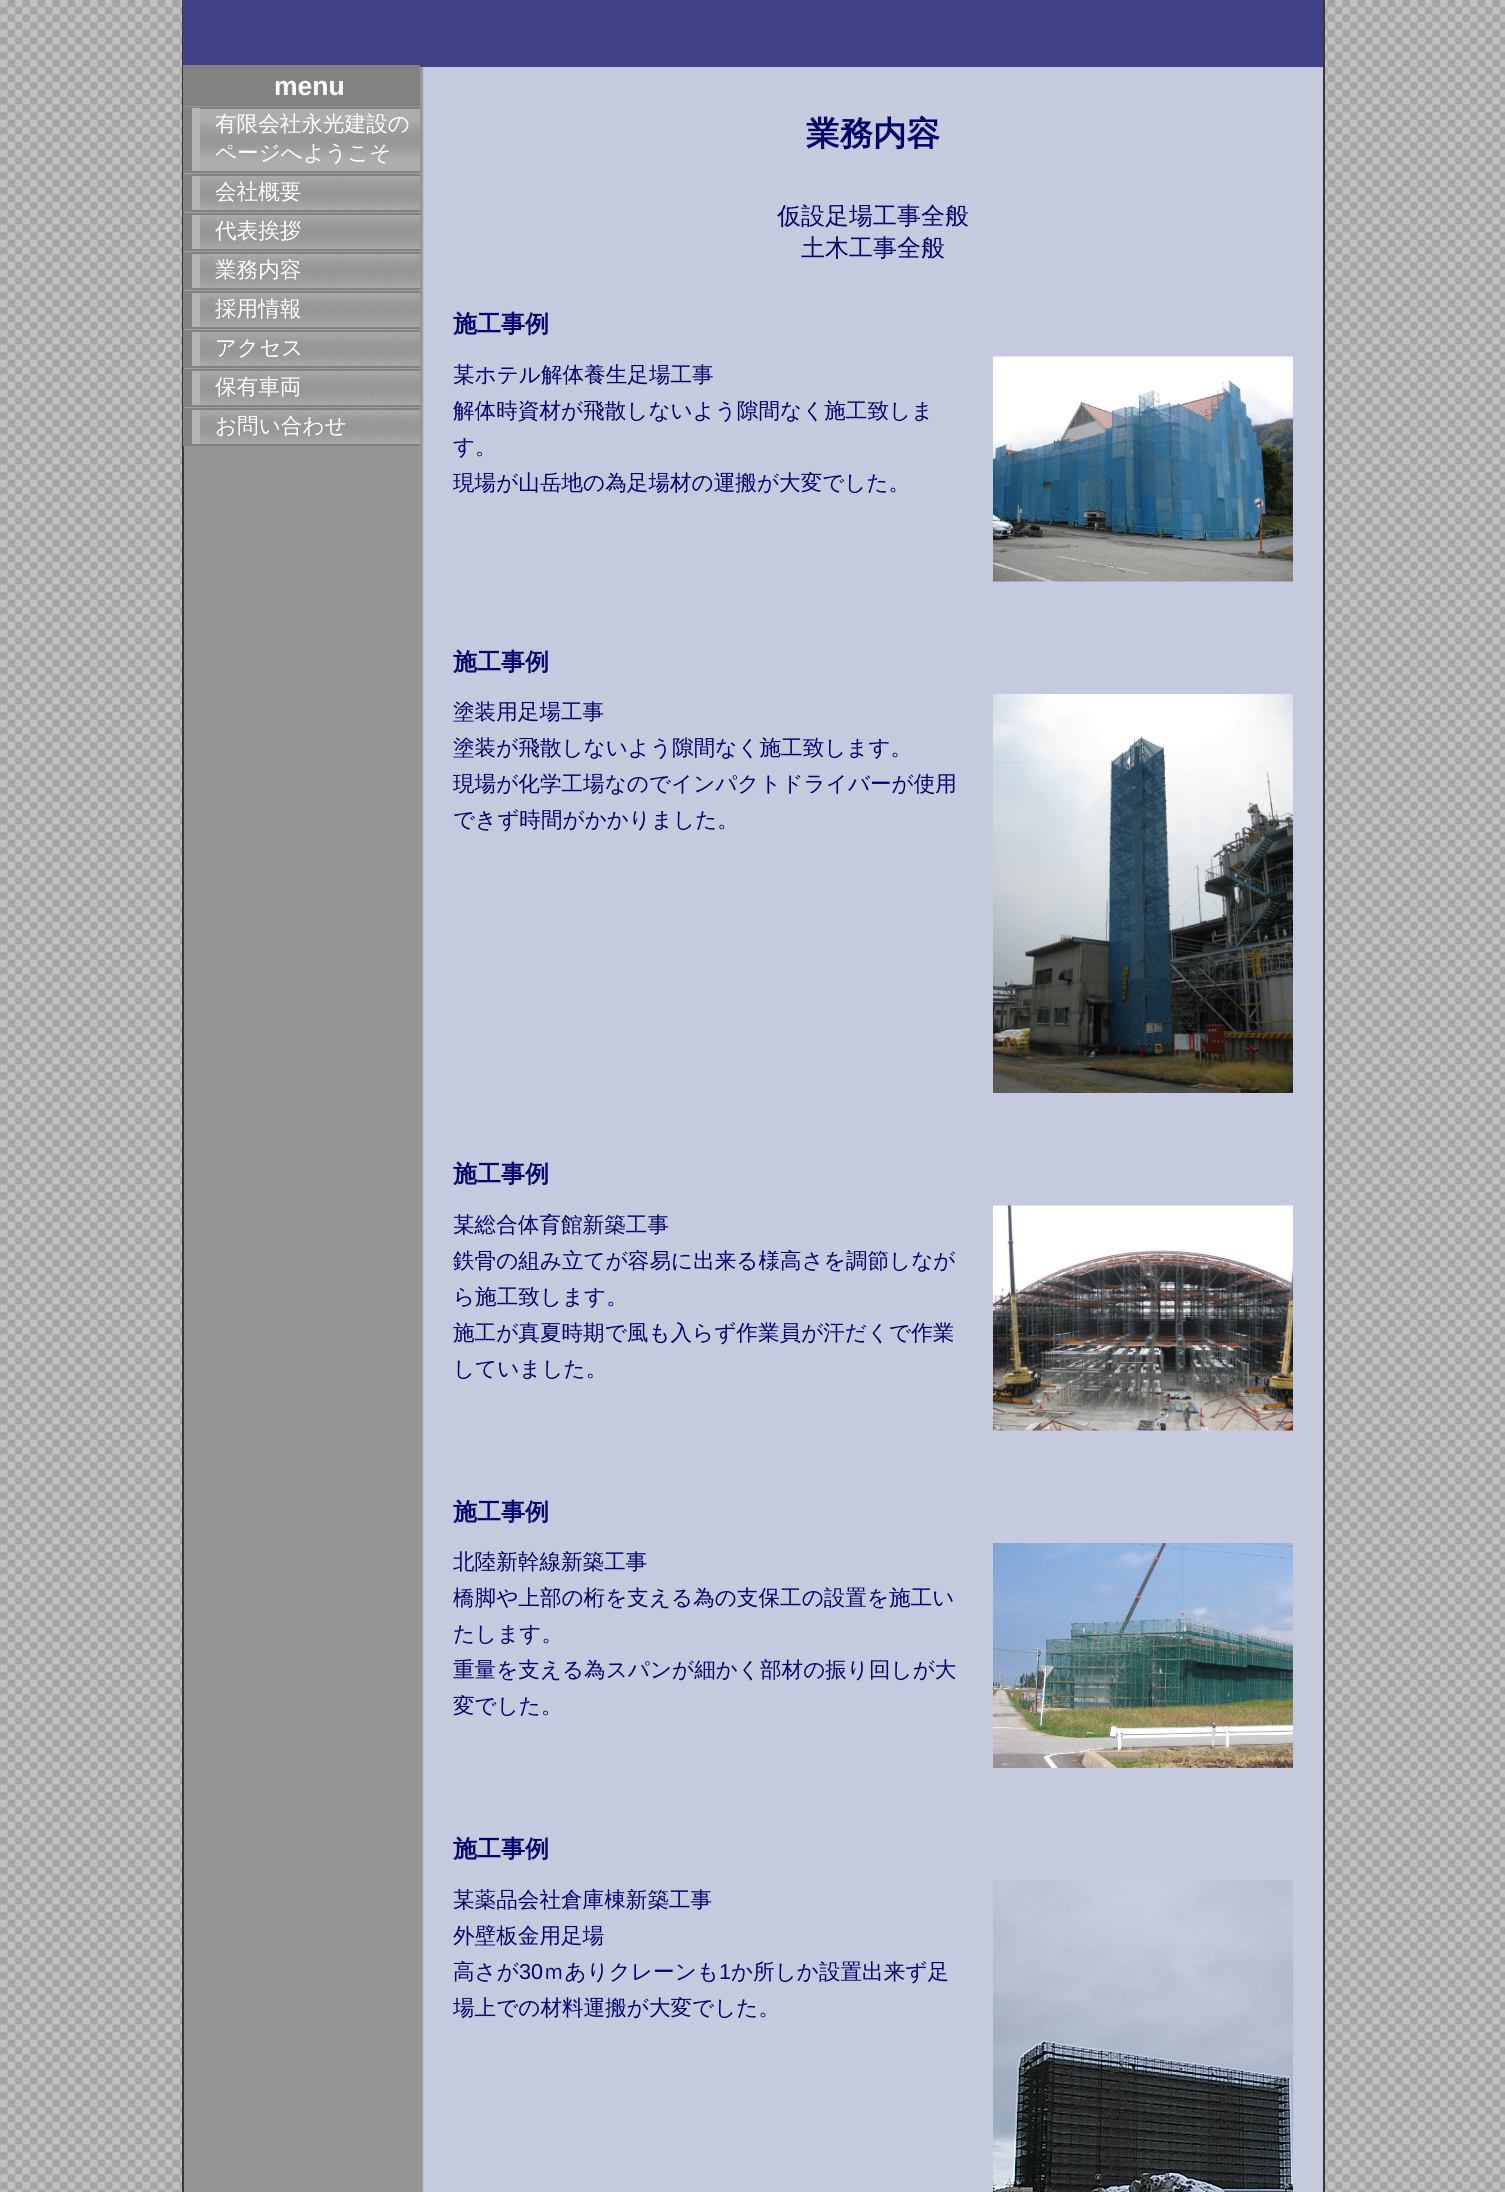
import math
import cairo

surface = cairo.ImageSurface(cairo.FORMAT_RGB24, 1505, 2192)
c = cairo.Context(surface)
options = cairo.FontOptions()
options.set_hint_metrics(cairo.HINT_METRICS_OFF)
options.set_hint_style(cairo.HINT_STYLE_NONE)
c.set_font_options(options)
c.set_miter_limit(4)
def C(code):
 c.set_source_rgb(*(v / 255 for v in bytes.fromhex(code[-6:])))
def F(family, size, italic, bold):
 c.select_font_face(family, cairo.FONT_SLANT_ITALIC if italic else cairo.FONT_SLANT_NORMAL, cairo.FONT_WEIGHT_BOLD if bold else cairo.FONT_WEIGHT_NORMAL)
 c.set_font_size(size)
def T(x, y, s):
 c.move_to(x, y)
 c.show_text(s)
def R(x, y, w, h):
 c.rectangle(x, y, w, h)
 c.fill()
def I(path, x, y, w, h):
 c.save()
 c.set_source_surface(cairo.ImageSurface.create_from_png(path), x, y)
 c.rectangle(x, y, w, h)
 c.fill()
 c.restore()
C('ffffff')
c.paint()
I('1.png',0,0,1505,2192)
I('2.png',184,67,1139,2125)
c.rectangle(183,-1,1141,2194)
C('373737')
c.stroke()
C('414187')
R(183,0,1140,65)
R(420,65,903,2)
C('959595')
R(183,106,1,1)
C('828282')
R(183,65,237,41)
F('Liberation Sans',26.5,0,1)
C('ffffff')
T(274,95,'menu')
C('adadad')
R(200,109,220,62)
I('3.png',200,118,220,42)
C('828282')
R(192,107,228,2)
R(192,171,228,2)
R(183,107,9,66)
C('b4b4b4')
R(192,108,8,63)
F('WenQuanYi Zen Hei Medium',21.6,0,0)
C('ffffff')
T(215,131,'有限会社永光建設の')
T(215,160,'ページへようこそ')
I('4.png',183,173,237,37)
C('828282')
R(192,174,228,2)
R(192,210,228,2)
R(183,174,9,38)
C('b4b4b4')
R(192,176,8,34)
C('ffffff')
T(215,199,'会社概要')
I('4.png',183,212,237,37)
C('828282')
R(192,213,228,2)
R(192,249,228,2)
R(183,213,9,38)
C('b4b4b4')
R(192,215,8,34)
C('ffffff')
T(215,238,'代表挨拶')
I('4.png',183,251,237,37)
C('828282')
R(192,252,228,2)
R(192,288,228,2)
R(183,252,9,38)
C('b4b4b4')
R(192,254,8,34)
C('ffffff')
T(215,277,'業務内容')
I('4.png',183,290,237,37)
C('828282')
R(192,291,228,2)
R(192,327,228,2)
R(183,291,9,38)
C('b4b4b4')
R(192,293,8,34)
C('ffffff')
T(215,316,'採用情報')
I('4.png',183,329,237,37)
C('828282')
R(192,330,228,2)
R(192,366,228,2)
R(183,330,9,38)
C('b4b4b4')
R(192,332,8,34)
C('ffffff')
T(215,355,'アクセス')
I('4.png',183,368,237,37)
C('828282')
R(192,369,228,2)
R(192,405,228,2)
R(183,369,9,38)
C('b4b4b4')
R(192,371,8,34)
C('ffffff')
T(215,394,'保有車両')
I('4.png',183,407,237,37)
C('828282')
R(192,408,228,2)
R(192,444,228,2)
R(183,408,9,38)
C('b4b4b4')
R(192,410,8,34)
C('ffffff')
T(215,433,'お問い合わせ')
F('WenQuanYi Zen Hei',33.5,0,1)
C('00046c')
T(806,145,'業務内容')
F('WenQuanYi Zen Hei Medium',24,0,0)
T(777,224,'仮設足場工事全般')
T(801,256,'土木工事全般')
F('WenQuanYi Zen Hei',24,0,1)
T(453,332,'施工事例')
F('WenQuanYi Zen Hei Medium',21.6,0,0)
T(453,382,'某ホテル解体養生足場工事')
T(453,418,'解体時資材が飛散しないよう隙間なく施工致しま')
T(453,454,'す。')
T(453,490,'現場が山岳地の為足場材の運搬が大変でした。')
I('5.png',993,356,300,226)
F('WenQuanYi Zen Hei',24,0,1)
T(453,670,'施工事例')
F('WenQuanYi Zen Hei Medium',21.6,0,0)
T(453,719,'塗装用足場工事')
T(453,755,'塗装が飛散しないよう隙間なく施工致します。')
T(453,791,'現場が化学工場なのでインパクトドライバーが使用')
T(453,827,'できず時間がかかりました。')
I('6.png',993,694,300,399)
F('WenQuanYi Zen Hei',24,0,1)
T(453,1182,'施工事例')
F('WenQuanYi Zen Hei Medium',21.6,0,0)
T(453,1232,'某総合体育館新築工事')
T(453,1268,'鉄骨の組み立てが容易に出来る様高さを調節しなが')
T(453,1304,'ら施工致します。')
T(453,1340,'施工が真夏時期で風も入らず作業員が汗だくで作業')
T(453,1376,'していました。')
I('7.png',993,1205,300,226)
F('WenQuanYi Zen Hei',24,0,1)
T(453,1520,'施工事例')
F('WenQuanYi Zen Hei Medium',21.6,0,0)
T(453,1569,'北陸新幹線新築工事')
T(453,1605,'橋脚や上部の桁を支える為の支保工の設置を施工い')
T(453,1641,'たします。')
T(453,1677,'重量を支える為スパンが細かく部材の振り回しが大')
T(453,1713,'変でした。')
I('8.png',993,1543,300,225)
F('WenQuanYi Zen Hei',24,0,1)
T(453,1857,'施工事例')
F('WenQuanYi Zen Hei Medium',21.6,0,0)
T(453,1907,'某薬品会社倉庫棟新築工事')
T(453,1943,'外壁板金用足場')
T(453,1979,'高さが')
F('Liberation Sans',21.6,0,0)
T(519,1979,'30')
F('WenQuanYi Zen Hei Medium',21.6,0,0)
T(543,1979,'ｍありクレーンも')
F('Liberation Sans',21.6,0,0)
T(719,1979,'1')
F('WenQuanYi Zen Hei Medium',21.6,0,0)
T(731,1979,'か所しか設置出来ず足')
T(453,2015,'場上での材料運搬が大変でした。')
I('9.png',993,1880,300,312)
surface.write_to_png('o.png')
